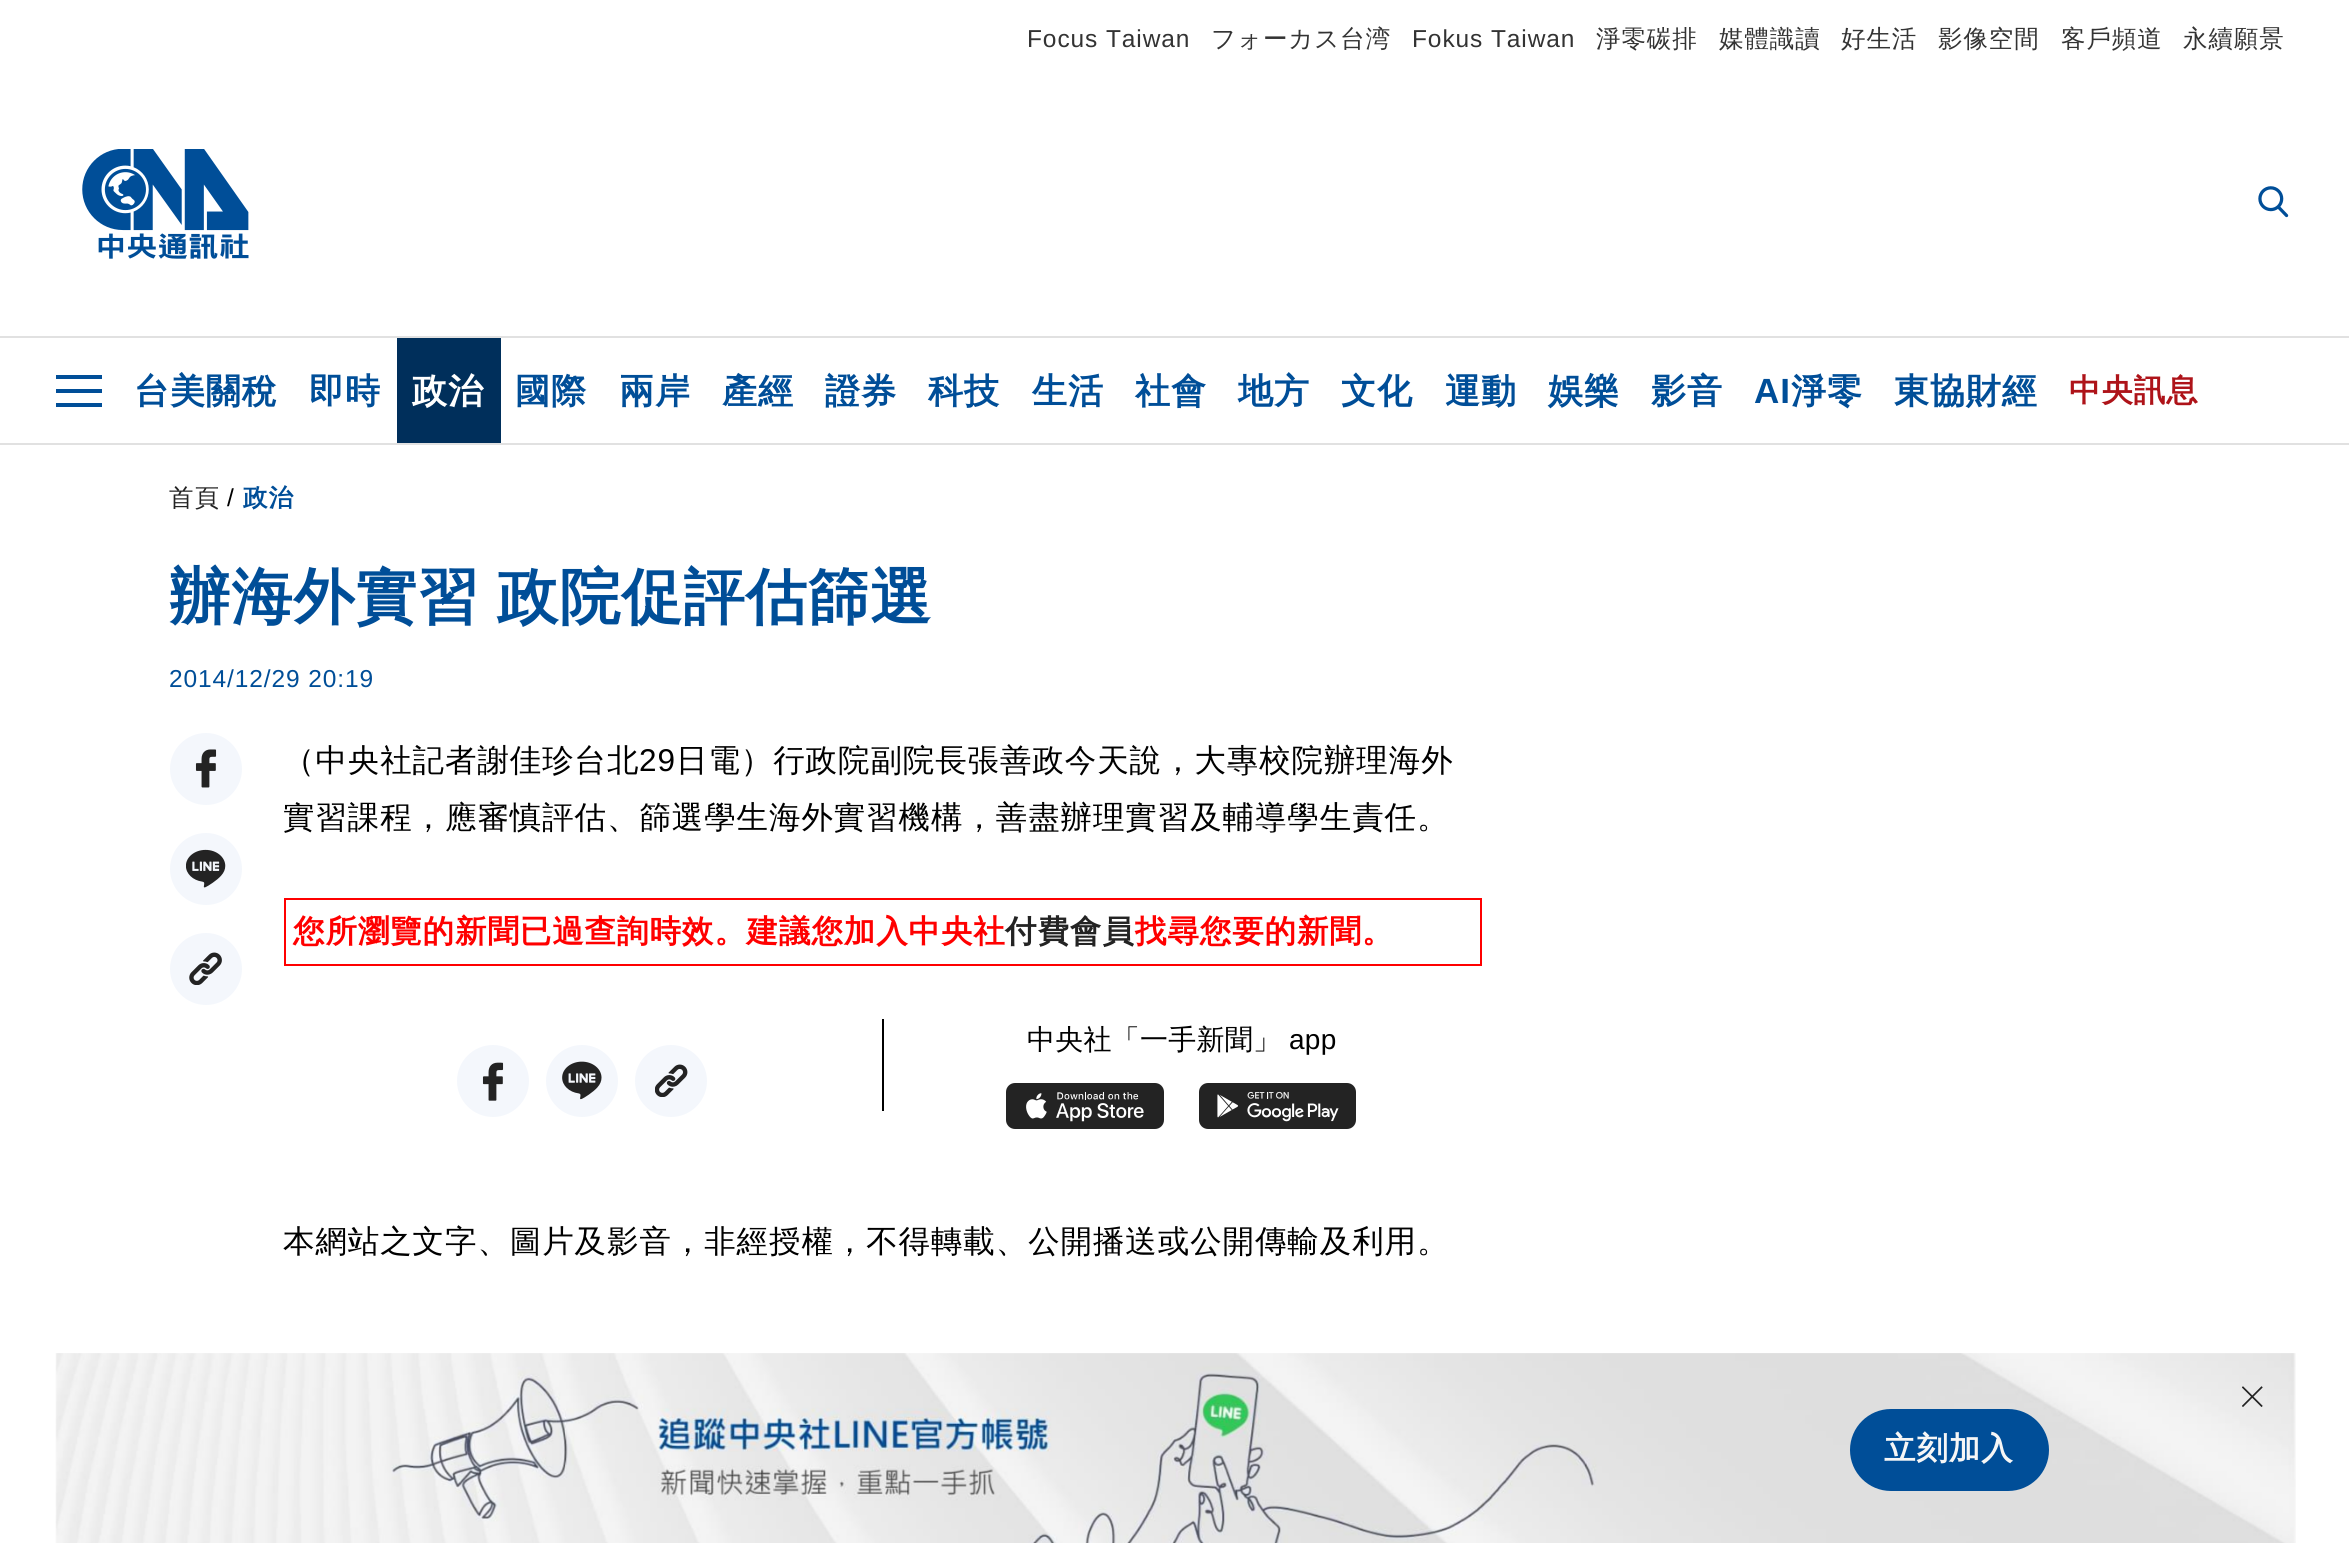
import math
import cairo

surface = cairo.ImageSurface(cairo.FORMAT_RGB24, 2349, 1543)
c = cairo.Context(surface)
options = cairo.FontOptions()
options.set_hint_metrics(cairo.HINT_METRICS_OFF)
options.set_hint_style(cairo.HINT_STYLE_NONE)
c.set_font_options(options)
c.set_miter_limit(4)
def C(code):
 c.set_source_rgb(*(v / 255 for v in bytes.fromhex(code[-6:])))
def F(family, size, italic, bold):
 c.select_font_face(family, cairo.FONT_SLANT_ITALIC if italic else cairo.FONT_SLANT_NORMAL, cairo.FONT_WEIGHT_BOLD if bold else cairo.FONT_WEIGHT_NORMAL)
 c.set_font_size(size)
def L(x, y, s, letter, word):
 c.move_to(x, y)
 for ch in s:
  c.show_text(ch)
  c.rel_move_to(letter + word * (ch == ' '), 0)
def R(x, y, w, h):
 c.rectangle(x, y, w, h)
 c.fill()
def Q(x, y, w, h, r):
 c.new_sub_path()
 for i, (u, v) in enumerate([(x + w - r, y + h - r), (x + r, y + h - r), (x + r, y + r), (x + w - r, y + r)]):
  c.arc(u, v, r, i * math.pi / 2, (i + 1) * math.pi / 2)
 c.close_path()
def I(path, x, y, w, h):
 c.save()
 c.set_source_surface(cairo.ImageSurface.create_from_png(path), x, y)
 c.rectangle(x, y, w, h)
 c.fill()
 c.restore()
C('ffffff')
c.paint()
F('Liberation Sans',24.5,0,0)
C('333333')
L(1027,47,'Focus Taiwan',.9,0)
F('WenQuanYi Zen Hei Medium',24.5,0,0)
L(1211,47,'フォーカス台湾',.9,0)
F('Liberation Sans',24.5,0,0)
L(1412,47,'Fokus Taiwan',.9,0)
F('WenQuanYi Zen Hei Medium',24.5,0,0)
L(1596,47,'淨零碳排',.9,0)
L(1719,47,'媒體識讀',.9,0)
L(1841,47,'好生活',.9,0)
L(1938,47,'影像空間',.9,0)
L(2061,47,'客戶頻道',.9,0)
L(2183,47,'永續願景',.9,0)
I('1.png',82,149,167,110)
I('2.png',2258,186,31,32)
I('3.png',55,1353,2241,190)
I('4.png',2242,1386,21,21)
C('004e98')
Q(1850,1409,199,82,41)
c.fill()
F('WenQuanYi Zen Hei',31.5,0,1)
C('f6f6f6')
L(1884,1459,'立刻加入',.9,0)
C('e1e1e1')
R(0,336,2349,2)
R(0,443,2349,2)
C('004e98')
R(56,375,46,4)
R(56,389,46,4)
R(56,403,46,4)
F('WenQuanYi Zen Hei',35,0,1)
L(134,403,'台美關稅',.9,0)
L(309,403,'即時',.9,0)
C('002f5b')
R(397,338,104,105)
C('ffffff')
L(412,403,'政治',.9,0)
C('004e98')
L(515,403,'國際',.9,0)
L(619,403,'兩岸',.9,0)
L(722,403,'產經',.9,0)
L(825,403,'證券',.9,0)
L(928,403,'科技',.9,0)
L(1032,403,'生活',.9,0)
L(1135,403,'社會',.9,0)
L(1238,403,'地方',.9,0)
L(1341,403,'文化',.9,0)
L(1445,403,'運動',.9,0)
L(1548,403,'娛樂',.9,0)
L(1651,403,'影音',.9,0)
F('Liberation Sans',35,0,1)
L(1754,403,'AI',.9,0)
F('WenQuanYi Zen Hei',35,0,1)
L(1791,403,'淨零',.9,0)
L(1894,403,'東協財經',.9,0)
F('WenQuanYi Zen Hei',31.5,0,1)
C('ae1319')
L(2069,401,'中央訊息',.9,0)
F('WenQuanYi Zen Hei Medium',24.5,0,0)
C('232323')
L(169,506,'首頁',.9,0)
F('Liberation Sans',24.5,0,0)
C('000000')
L(227,506,'/',.9,0)
F('WenQuanYi Zen Hei',24.5,0,1)
C('004e98')
L(243,506,'政治',.9,0)
F('WenQuanYi Zen Hei',61.25,0,1)
L(169,618,'辦海外實習',.9,0)
L(497,618,'政院促評估篩選',.9,0)
F('Liberation Sans',24.5,0,0)
L(169,687,'2014/12/29 20:19',.9,0)
C('f4f7fc')
c.new_path()
c.arc(206,769,36,0,2 * math.pi)
c.fill()
I('5.png',195,749,22,39)
c.arc(206,869,36,0,2 * math.pi)
c.fill()
I('6.png',186,849,40,39)
c.arc(206,969,36,0,2 * math.pi)
c.fill()
I('7.png',189,952,33,33)
F('WenQuanYi Zen Hei Medium',31.5,0,0)
C('000000')
L(283,771,'（中央社記者謝佳珍台北',.9,0)
F('Liberation Sans',31.5,0,0)
L(639,771,'29',.9,0)
F('WenQuanYi Zen Hei Medium',31.5,0,0)
L(676,771,'日電）行政院副院長張善政今天說，大專校院辦理海外',.9,0)
L(283,828,'實習課程，應審慎評估、篩選學生海外實習機構，善盡辦理實習及輔導學生責任。',.9,0)
c.rectangle(285,899,1196,66)
C('ff0000')
c.stroke()
F('WenQuanYi Zen Hei',31.5,0,1)
L(293,942,'您所瀏覽的新聞已過查詢時效。建議您加入中央社',.9,0)
C('232323')
L(1005,942,'付費會員',.9,0)
C('ff0000')
L(1135,942,'找尋您要的新聞。',.9,0)
C('000000')
R(882,1019,2,92)
F('WenQuanYi Zen Hei Medium',28,0,0)
L(1027,1049,'中央社「一手新聞」',.25,0)
F('Liberation Sans',28,0,0)
L(1289,1049,'app',.25,0)
I('8.png',1006,1083,158,46)
I('9.png',1199,1083,157,46)
C('f4f7fc')
c.arc(493,1081,36,0,2 * math.pi)
c.fill()
I('10.png',482,1062,22,39)
c.arc(582,1081,36,0,2 * math.pi)
c.fill()
I('11.png',562,1061,40,39)
c.arc(671,1081,36,0,2 * math.pi)
c.fill()
I('12.png',655,1064,33,33)
F('WenQuanYi Zen Hei Medium',31.5,0,0)
C('000000')
L(283,1252,'本網站之文字、圖片及影音，非經授權，不得轉載、公開播送或公開傳輸及利用。',.9,0)
surface.write_to_png('o.png')
